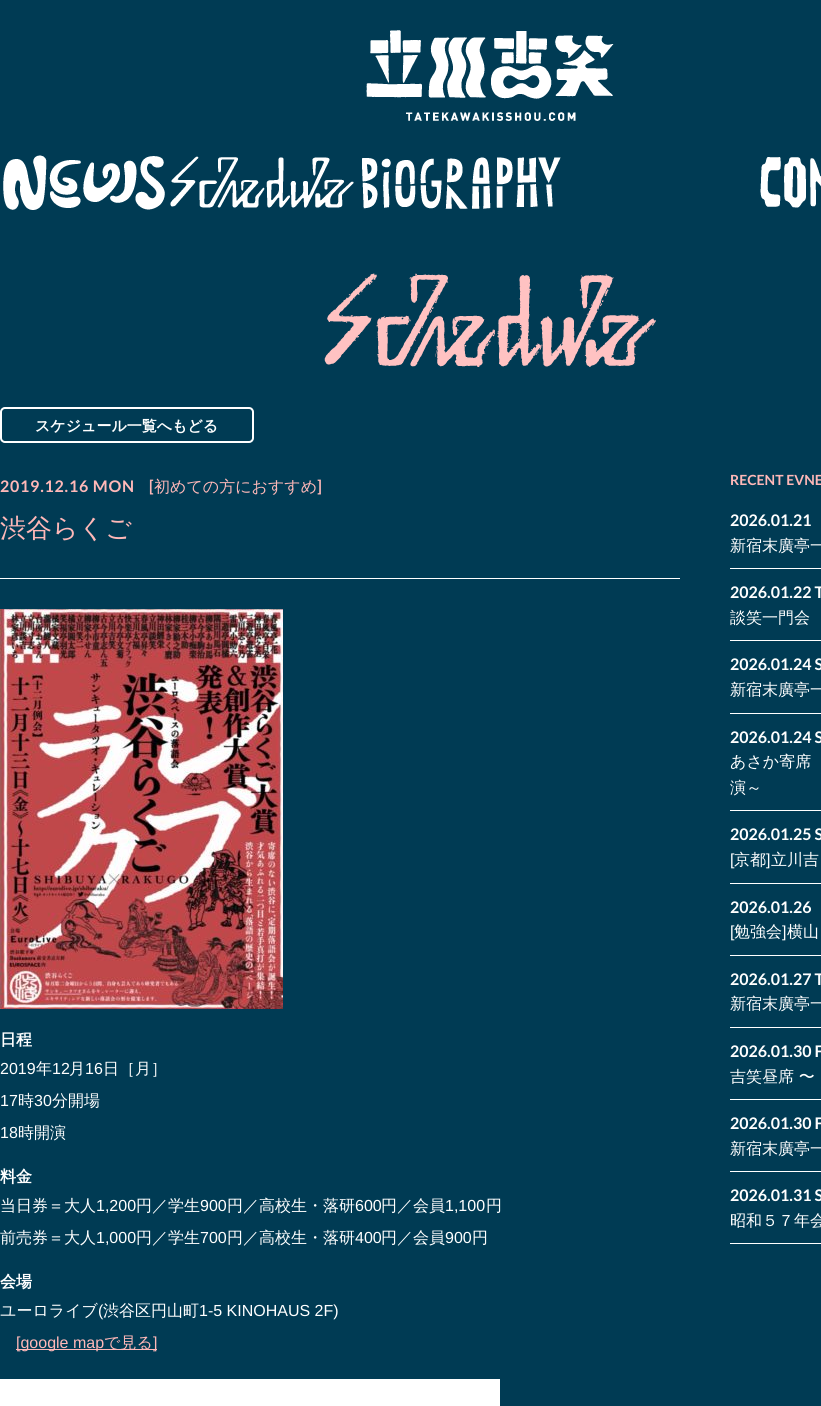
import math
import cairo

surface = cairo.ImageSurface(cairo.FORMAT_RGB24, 821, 1406)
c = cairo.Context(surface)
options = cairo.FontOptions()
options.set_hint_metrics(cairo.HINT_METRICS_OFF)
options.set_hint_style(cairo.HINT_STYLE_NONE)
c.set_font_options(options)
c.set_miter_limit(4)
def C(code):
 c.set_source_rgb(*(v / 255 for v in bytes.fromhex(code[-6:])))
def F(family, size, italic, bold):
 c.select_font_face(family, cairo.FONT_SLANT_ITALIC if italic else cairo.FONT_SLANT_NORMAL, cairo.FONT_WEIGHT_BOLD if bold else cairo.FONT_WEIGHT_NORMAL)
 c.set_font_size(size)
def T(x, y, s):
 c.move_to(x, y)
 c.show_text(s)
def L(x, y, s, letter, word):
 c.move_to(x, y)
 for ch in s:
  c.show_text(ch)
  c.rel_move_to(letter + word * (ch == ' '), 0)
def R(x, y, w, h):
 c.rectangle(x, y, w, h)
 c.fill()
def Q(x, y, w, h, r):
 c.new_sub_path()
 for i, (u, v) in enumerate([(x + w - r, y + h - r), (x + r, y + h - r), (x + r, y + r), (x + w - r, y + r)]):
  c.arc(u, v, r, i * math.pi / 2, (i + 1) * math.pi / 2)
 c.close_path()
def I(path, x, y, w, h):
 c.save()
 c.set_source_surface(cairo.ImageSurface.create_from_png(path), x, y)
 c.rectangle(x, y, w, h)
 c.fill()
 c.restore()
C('003b54')
c.paint()
I('1.png',366,30,248,91)
I('2.png',3,155,162,55)
I('3.png',170,156,184,52)
I('4.png',362,157,199,52)
I('5.png',760,157,61,51)
I('6.png',324,273,332,94)
Q(1,408,252,34,4)
C('ffffff')
c.stroke()
F('WenQuanYi Zen Hei',15,0,1)
T(35,431,'スケジュール一覧へもどる')
R(0,578,680,1)
F('Lato',16,0,1)
C('ffb8b8')
L(0,492,'2019.12.16 MON',.75,0)
T(149,492,'[')
F('WenQuanYi Zen Hei Medium',16,0,0)
T(154,492,'初めての方におすすめ')
F('Lato',16,0,1)
T(317,492,']')
F('WenQuanYi Zen Hei Medium',26,0,0)
T(0,537,'渋谷らくご')
I('7.png',0,609,283,400)
F('WenQuanYi Zen Hei',16,0,1)
C('ffffff')
T(0,1045,'日程')
F('Liberation Sans',16,0,0)
T(0,1074,'2019')
F('WenQuanYi Zen Hei Medium',16,0,0)
T(36,1074,'年')
F('Liberation Sans',16,0,0)
T(52,1074,'12')
F('WenQuanYi Zen Hei Medium',16,0,0)
T(69,1074,'月')
F('Liberation Sans',16,0,0)
T(85,1074,'16')
F('WenQuanYi Zen Hei Medium',16,0,0)
T(103,1074,'日［月］')
F('Liberation Sans',16,0,0)
T(0,1106,'17')
F('WenQuanYi Zen Hei Medium',16,0,0)
T(18,1106,'時')
F('Liberation Sans',16,0,0)
T(34,1106,'30')
F('WenQuanYi Zen Hei Medium',16,0,0)
T(52,1106,'分開場')
F('Liberation Sans',16,0,0)
T(0,1138,'18')
F('WenQuanYi Zen Hei Medium',16,0,0)
T(18,1138,'時開演')
F('WenQuanYi Zen Hei',16,0,1)
T(0,1182,'料金')
F('WenQuanYi Zen Hei Medium',16,0,0)
T(0,1211,'当日券＝大人')
F('Liberation Sans',16,0,0)
T(96,1211,'1,200')
F('WenQuanYi Zen Hei Medium',16,0,0)
T(136,1211,'円／学生')
F('Liberation Sans',16,0,0)
T(200,1211,'900')
F('WenQuanYi Zen Hei Medium',16,0,0)
T(227,1211,'円／高校生・落研')
F('Liberation Sans',16,0,0)
T(355,1211,'600')
F('WenQuanYi Zen Hei Medium',16,0,0)
T(381,1211,'円／会員')
F('Liberation Sans',16,0,0)
T(445,1211,'1,100')
F('WenQuanYi Zen Hei Medium',16,0,0)
T(486,1211,'円')
T(0,1243,'前売券＝大人')
F('Liberation Sans',16,0,0)
T(96,1243,'1,000')
F('WenQuanYi Zen Hei Medium',16,0,0)
T(136,1243,'円／学生')
F('Liberation Sans',16,0,0)
T(200,1243,'700')
F('WenQuanYi Zen Hei Medium',16,0,0)
T(227,1243,'円／高校生・落研')
F('Liberation Sans',16,0,0)
T(355,1243,'400')
F('WenQuanYi Zen Hei Medium',16,0,0)
T(381,1243,'円／会員')
F('Liberation Sans',16,0,0)
T(445,1243,'900')
F('WenQuanYi Zen Hei Medium',16,0,0)
T(472,1243,'円')
F('WenQuanYi Zen Hei',16,0,1)
T(0,1287,'会場')
F('WenQuanYi Zen Hei Medium',16,0,0)
T(0,1316,'ユーロライブ')
F('Liberation Sans',16,0,0)
T(98,1316,'(')
F('WenQuanYi Zen Hei Medium',16,0,0)
T(103,1316,'渋谷区円山町')
F('Liberation Sans',16,0,0)
T(199,1316,'1-5 KINOHAUS 2F)')
C('ffb8b8')
R(16,1349,141,1)
T(16,1348,'[google map')
F('WenQuanYi Zen Hei Medium',16,0,0)
T(104,1348,'で見る')
F('Liberation Sans',16,0,0)
T(153,1348,']')
C('ffffff')
R(0,1379,500,27)
F('Lato',14,0,1)
C('ffb8b8')
T(730,485,'RECENT EVNE')
C('ffffff')
R(730,568,91,1)
F('Lato',16,0,1)
T(730,526,'2026.01.21')
F('WenQuanYi Zen Hei Medium',16,0,0)
T(730,551,'新宿末廣亭一')
R(730,640,91,1)
F('Lato',16,0,1)
T(730,598,'2026.01.22 T')
F('WenQuanYi Zen Hei Medium',16,0,0)
T(730,623,'談笑一門会')
R(730,713,91,1)
F('Lato',16,0,1)
T(730,670,'2026.01.24 S')
F('WenQuanYi Zen Hei Medium',16,0,0)
T(730,695,'新宿末廣亭一')
R(730,810,91,1)
F('Lato',16,0,1)
T(730,743,'2026.01.24 S')
F('WenQuanYi Zen Hei Medium',16,0,0)
T(730,767,'あさか寄席')
T(730,793,'演～')
R(730,883,91,1)
F('Lato',16,0,1)
T(730,840,'2026.01.25 S')
F('Liberation Sans',16,0,0)
T(730,865,'[')
F('WenQuanYi Zen Hei Medium',16,0,0)
T(734,865,'京都')
F('Liberation Sans',16,0,0)
T(766,865,']')
F('WenQuanYi Zen Hei Medium',16,0,0)
T(771,865,'立川吉')
R(730,955,91,1)
F('Lato',16,0,1)
T(730,913,'2026.01.26')
F('Liberation Sans',16,0,0)
T(730,937,'[')
F('WenQuanYi Zen Hei Medium',16,0,0)
T(734,937,'勉強会')
F('Liberation Sans',16,0,0)
T(782,937,']')
F('WenQuanYi Zen Hei Medium',16,0,0)
T(787,937,'横山')
R(730,1027,91,1)
F('Lato',16,0,1)
T(730,985,'2026.01.27 T')
F('WenQuanYi Zen Hei Medium',16,0,0)
T(730,1009,'新宿末廣亭一')
R(730,1099,91,1)
F('Lato',16,0,1)
T(730,1057,'2026.01.30 F')
F('WenQuanYi Zen Hei Medium',16,0,0)
T(730,1082,'吉笑昼席 〜')
R(730,1171,91,1)
F('Lato',16,0,1)
T(730,1129,'2026.01.30 F')
F('WenQuanYi Zen Hei Medium',16,0,0)
T(730,1154,'新宿末廣亭一')
R(730,1243,91,1)
F('Lato',16,0,1)
T(730,1201,'2026.01.31 S')
F('WenQuanYi Zen Hei Medium',16,0,0)
T(730,1226,'昭和５７年会')
surface.write_to_png('o.png')
